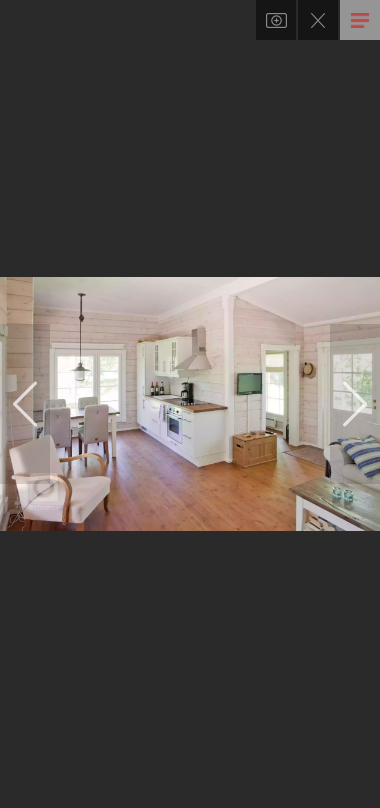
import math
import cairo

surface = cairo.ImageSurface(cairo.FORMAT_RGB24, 380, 808)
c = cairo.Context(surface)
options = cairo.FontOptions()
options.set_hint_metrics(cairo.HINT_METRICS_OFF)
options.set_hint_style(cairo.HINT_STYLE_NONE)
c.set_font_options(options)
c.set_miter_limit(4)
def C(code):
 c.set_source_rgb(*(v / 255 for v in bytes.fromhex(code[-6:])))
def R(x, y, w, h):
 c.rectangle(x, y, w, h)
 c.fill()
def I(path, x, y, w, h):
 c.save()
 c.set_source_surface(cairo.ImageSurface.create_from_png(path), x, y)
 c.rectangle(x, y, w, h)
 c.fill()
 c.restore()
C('2a2a2a')
c.paint()
C('151515')
R(256,0,40,40)
I('1.png',266,13,21,15)
R(298,0,40,40)
I('2.png',311,13,14,15)
C('959595')
R(340,0,40,40)
I('3.png',351,13,18,15)
I('4.png',0,277,380,254)
c.set_source_rgba(0,0,0,0.14)
R(0,324,50,160)
I('5.png',13,381,24,46)
R(330,324,50,160)
I('6.png',343,381,24,46)
surface.write_to_png('o.png')
